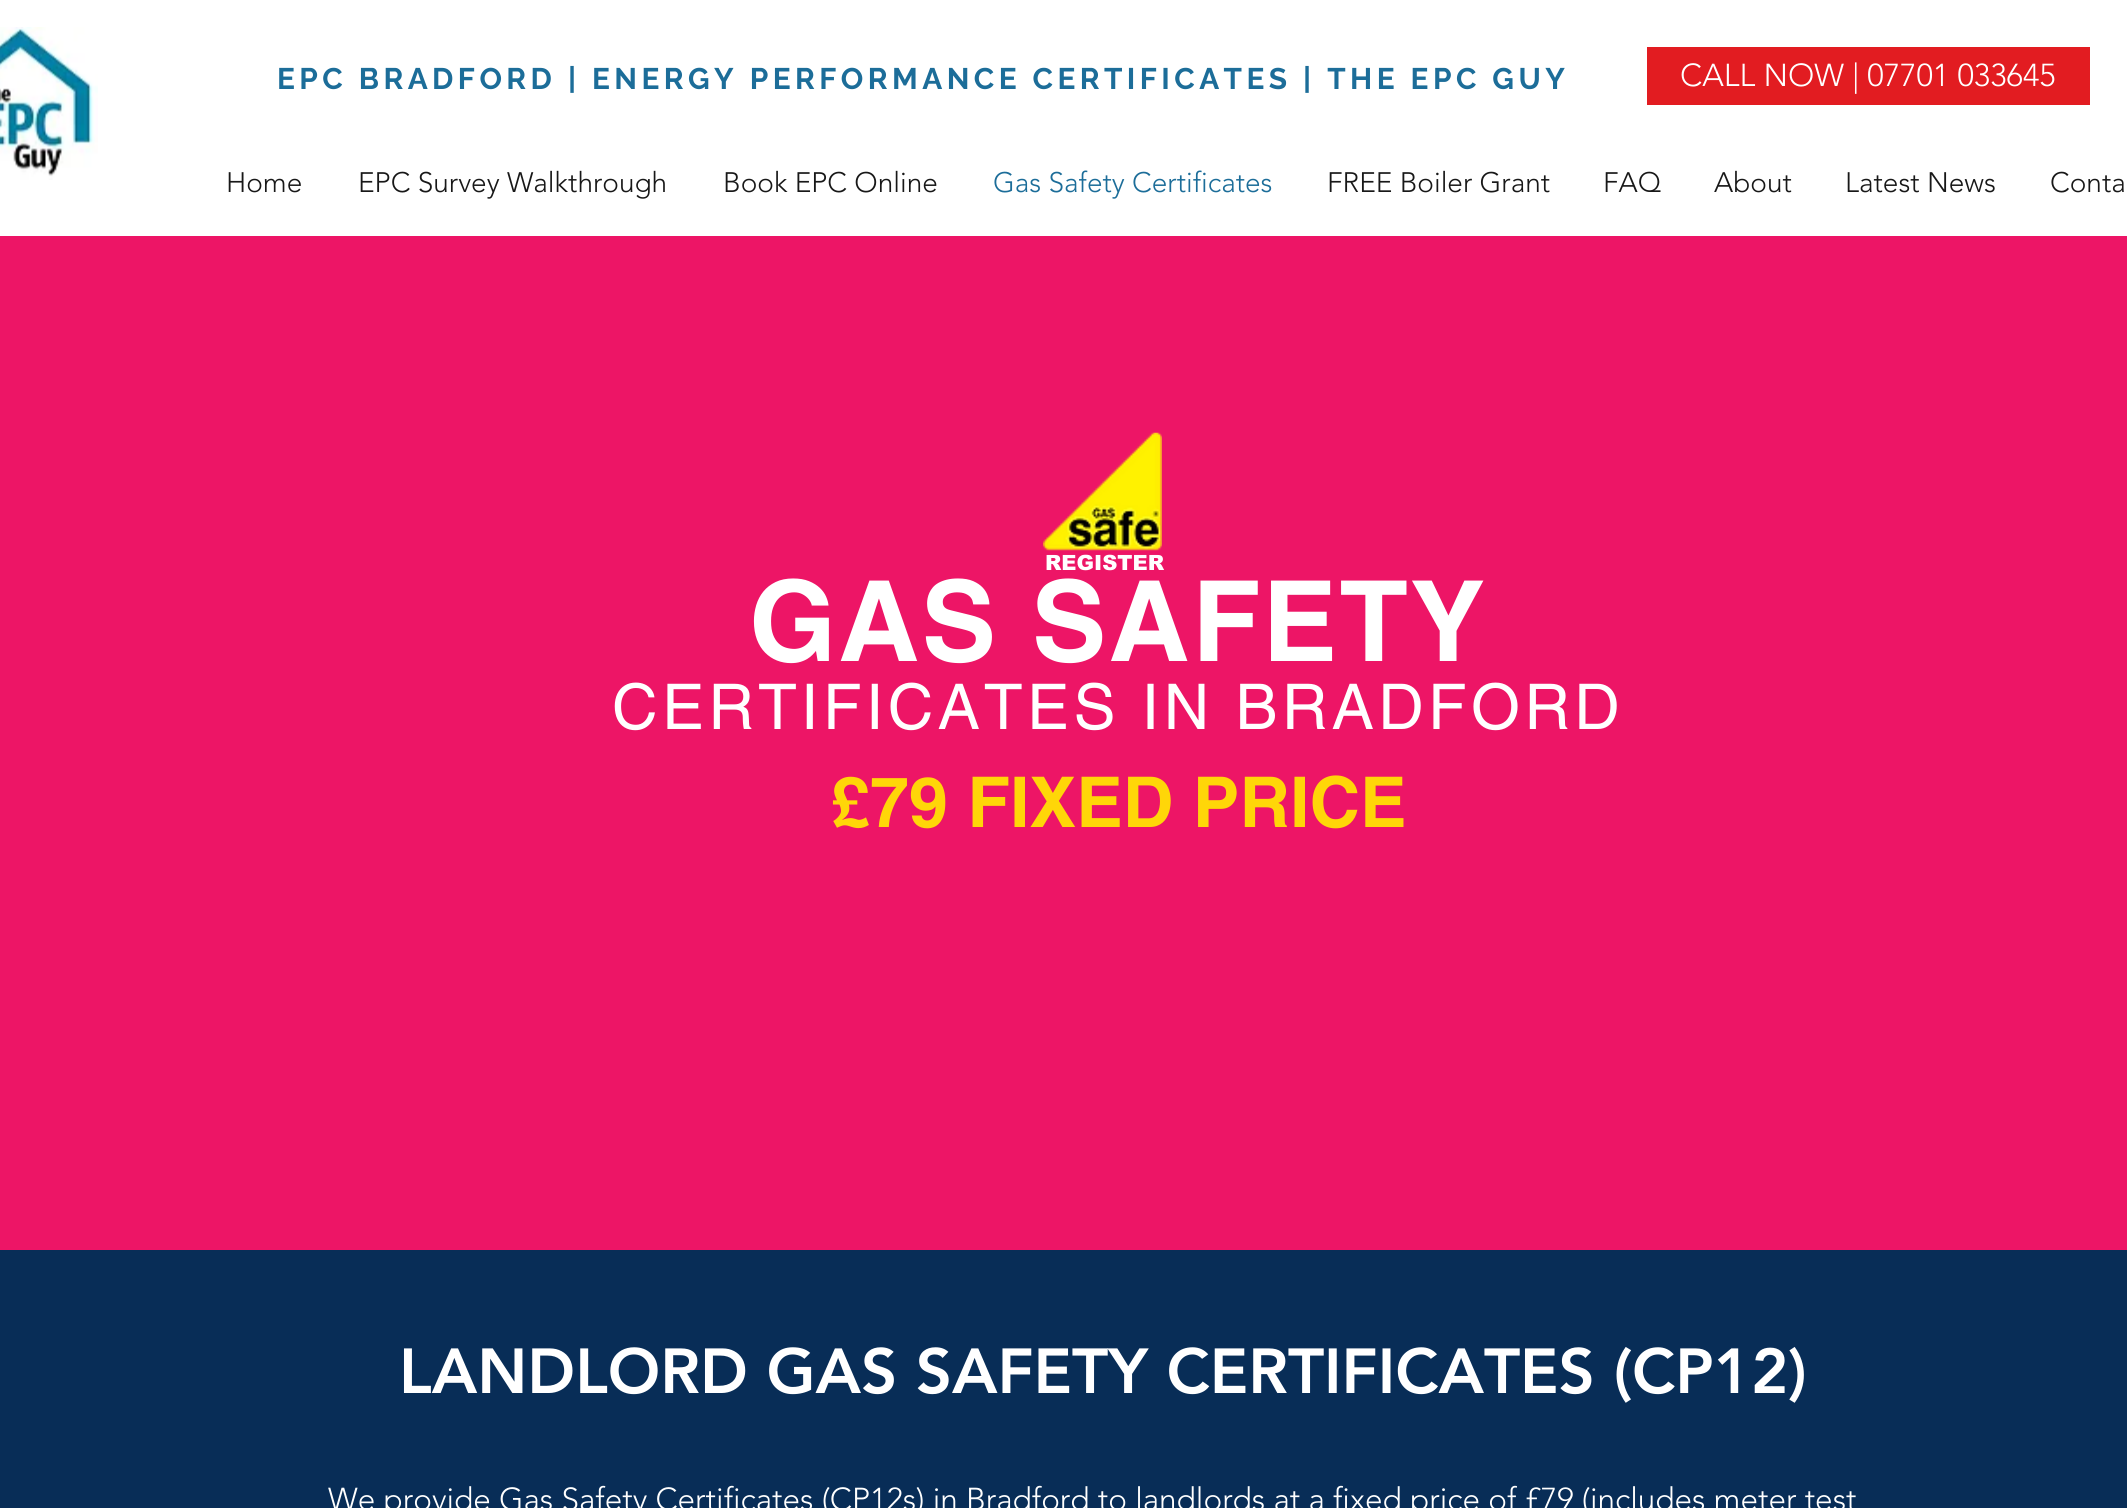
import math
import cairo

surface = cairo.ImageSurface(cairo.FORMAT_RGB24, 2127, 1508)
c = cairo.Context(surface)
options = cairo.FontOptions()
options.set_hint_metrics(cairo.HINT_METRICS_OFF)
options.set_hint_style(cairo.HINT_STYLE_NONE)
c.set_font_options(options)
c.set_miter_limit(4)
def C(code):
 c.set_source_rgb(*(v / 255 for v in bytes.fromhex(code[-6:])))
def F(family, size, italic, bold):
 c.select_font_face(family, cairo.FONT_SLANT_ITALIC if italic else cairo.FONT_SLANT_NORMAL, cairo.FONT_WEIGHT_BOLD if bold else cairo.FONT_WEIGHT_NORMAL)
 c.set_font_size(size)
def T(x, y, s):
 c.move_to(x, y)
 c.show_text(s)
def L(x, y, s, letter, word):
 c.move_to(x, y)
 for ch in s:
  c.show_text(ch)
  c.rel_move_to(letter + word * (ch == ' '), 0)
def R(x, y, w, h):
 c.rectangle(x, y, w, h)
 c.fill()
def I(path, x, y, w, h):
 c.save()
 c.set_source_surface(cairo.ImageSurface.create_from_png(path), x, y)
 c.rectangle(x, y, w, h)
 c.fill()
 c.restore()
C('ed1566')
c.paint()
C('ffffff')
R(0,0,2127,236)
I('1.png',0,27,98,153)
F('Raleway',29.75,0,1)
C('1c6d99')
L(277,89,'EPC BRADFORD | ENERGY PERFORMANCE CERTIFICATES | THE EPC GUY',4.45,0)
C('e21c21')
R(1647,47,443,58)
F('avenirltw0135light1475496 Light',31.5,0,0)
C('ffffff')
T(1680,86,'CALL NOW | 07701 033645')
F('avenirltw0135light1475496 Light',28,0,0)
C('181818')
T(226,192,'Home')
T(358,192,'EPC Survey Walkthrough')
T(723,192,'Book EPC Online')
C('1c6d99')
T(993,192,'Gas Safety Certificates')
C('181818')
T(1327,192,'FREE Boiler Grant')
T(1603,192,'FAQ')
T(1714,192,'About')
T(1845,192,'Latest News')
T(2050,192,'Conta')
I('2.png',1043,432,119,119)
F('arial Black',21,0,0)
C('ffffff')
T(1045,570,'REGISTER')
F('helvetica',112,0,1)
L(749,661,'GAS SAFETY',2.25,0)
F('helvetica',63,0,0)
L(612,729,'CERTIFICATES IN BRADFORD',4.4,0)
F('helvetica',70,0,1)
C('ffd608')
T(831,827,'£79 FIXED PRICE')
C('082d57')
R(0,1250,2127,258)
F('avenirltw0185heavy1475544 Black',63,0,0)
C('ffffff')
T(399,1393,'LANDLORD GAS SAFETY CERTIFICATES (CP12)')
F('avenirltw0135light1475496 Light',31.5,0,0)
T(328,1510,'We provide Gas Safety Certificates (CP12s) in Bradford to landlords at a fixed price of £79 (includes meter test')
surface.write_to_png('o.png')
